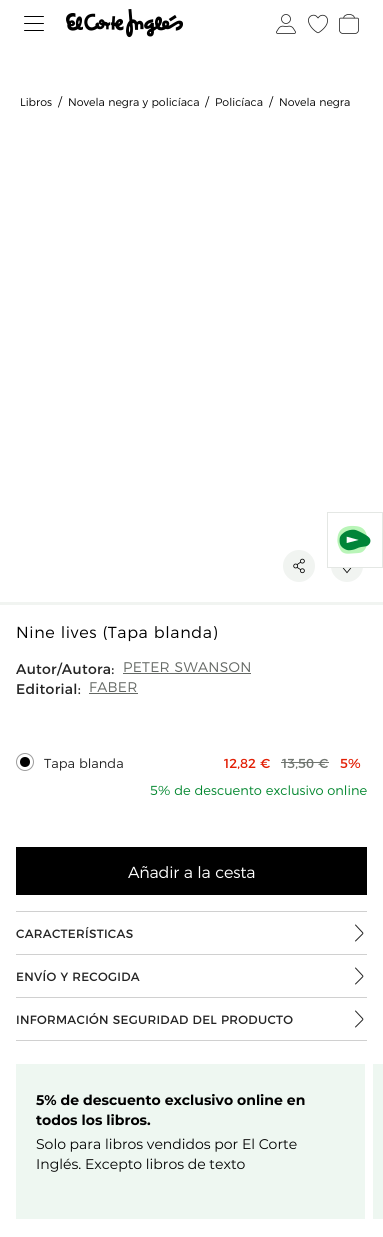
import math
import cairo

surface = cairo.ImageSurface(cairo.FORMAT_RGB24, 383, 1237)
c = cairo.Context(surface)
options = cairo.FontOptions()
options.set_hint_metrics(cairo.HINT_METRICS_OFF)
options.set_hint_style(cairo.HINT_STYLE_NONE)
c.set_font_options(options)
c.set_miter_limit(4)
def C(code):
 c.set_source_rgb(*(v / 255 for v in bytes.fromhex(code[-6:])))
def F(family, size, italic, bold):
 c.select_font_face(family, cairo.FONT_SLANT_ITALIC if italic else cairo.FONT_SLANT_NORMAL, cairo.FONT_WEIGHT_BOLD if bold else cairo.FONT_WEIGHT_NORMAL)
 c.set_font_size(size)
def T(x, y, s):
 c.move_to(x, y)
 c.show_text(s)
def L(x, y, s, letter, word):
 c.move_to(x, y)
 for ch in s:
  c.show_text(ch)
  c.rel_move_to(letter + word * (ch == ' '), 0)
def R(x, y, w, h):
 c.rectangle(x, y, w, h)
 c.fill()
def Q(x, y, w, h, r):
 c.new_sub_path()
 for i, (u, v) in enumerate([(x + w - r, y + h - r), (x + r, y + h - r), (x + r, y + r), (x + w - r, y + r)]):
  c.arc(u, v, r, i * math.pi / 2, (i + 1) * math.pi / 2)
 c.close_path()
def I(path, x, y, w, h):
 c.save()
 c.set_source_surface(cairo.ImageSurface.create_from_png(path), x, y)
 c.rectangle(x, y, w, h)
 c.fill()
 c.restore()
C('ffffff')
c.paint()
C('000000')
Q(24,23,20,1,.5)
c.fill()
Q(24,16,20,1,.5)
c.fill()
Q(24,30,20,1,.5)
c.fill()
I('1.png',66,9,117,29)
I('2.png',276,14,20,20)
I('3.png',308,14,20,20)
I('4.png',339,14,20,20)
F('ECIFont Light',11,0,0)
T(20,106,'Libros')
F('ECIFont Light',12,0,0)
T(58,106,'/')
F('ECIFont Light',11,0,0)
T(68,106,'Novela negra y policíaca')
F('ECIFont Light',12,0,0)
T(205,106,'/')
F('ECIFont Light',11,0,0)
T(215,106,'Policíaca')
F('ECIFont Light',12,0,0)
T(269,106,'/')
F('ECIFont Light',11,0,0)
T(279,106,'Novela negra')
C('f1f4f1')
c.new_path()
c.arc(299,566,16,0,2 * math.pi)
c.fill()
I('5.png',293,558,12,16)
c.arc(347,566,16,0,2 * math.pi)
c.fill()
I('6.png',342,568,10,6)
R(0,602,383,3)
F('ECIFont Light',16,0,0)
C('000000')
L(16,638,'Nine lives (Tapa blanda)',.6,0)
F('ECIFont',14,0,0)
C('242424')
L(16,674,'Autor/Autora:',.3,0)
F('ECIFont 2 Light',14,0,0)
C('646864')
L(123,672,'PETER SWANSON',.3,0)
R(123,673,128,1)
F('ECIFont',14,0,0)
C('242424')
L(16,694,'Editorial:',.3,0)
F('ECIFont 2 Light',14,0,0)
C('646864')
L(89,692,'FABER',.3,0)
R(89,693,49,1)
c.new_path()
c.arc(25,762,8.5,0,2 * math.pi)
C('9c9c9c')
c.set_line_width(1)
c.stroke()
C('000000')
c.arc(25,762,5,0,2 * math.pi)
c.fill()
F('ECIFont Light',13,0,0)
C('242424')
T(44,768,'Tapa blanda')
F('ECIFont',13,0,0)
C('e21e04')
T(223,768,'12,82 €')
C('707570')
T(281,768,'13,50 €')
R(281,762,48,1)
C('e21e04')
T(340,768,'5%')
F('ECIFont Light',13,0,0)
C('00862d')
T(150,795,'5% de descuento exclusivo online')
C('000000')
R(16,847,351,48)
F('ECIFont Light',16,0,0)
C('ffffff')
L(128,878,'Añadir a la cesta',-.2,0)
C('d0d0d0')
R(16,911,351,1)
F('ECIFont',12,0,0)
C('242424')
L(16,938,'CARACTERÍSTICAS',.3,0)
c.new_path()
c.move_to(355.5,941)
c.line_to(362.5,934)
c.curve_to(363,933.5,363,933,362.5,932.5)
c.line_to(355.5,925)
c.set_line_cap(cairo.LINE_CAP_ROUND)
c.stroke()
C('d0d0d0')
R(16,954,351,1)
C('242424')
L(16,981,'ENVÍO Y RECOGIDA',.3,0)
c.new_path()
c.move_to(355.5,984)
c.line_to(362.5,977)
c.curve_to(363,976.5,363,976,362.5,975.5)
c.line_to(355.5,968)
c.stroke()
C('d0d0d0')
R(16,997,351,1)
C('242424')
L(16,1024,'INFORMACIÓN SEGURIDAD DEL PRODUCTO',.3,0)
c.new_path()
c.move_to(355.5,1027)
c.line_to(362.5,1020)
c.curve_to(363,1019.5,363,1019,362.5,1018.5)
c.line_to(355.5,1011)
c.stroke()
C('d0d0d0')
R(16,1040,351,1)
C('eef7f1')
R(16,1064,349,155)
F('Montserrat',14,0,1)
C('000000')
T(36,1105,'5% de descuento exclusivo online en')
T(36,1125,'todos los libros.')
F('Montserrat',14,0,0)
T(36,1149,'Solo para libros vendidos por El Corte')
T(36,1169,'Inglés. Excepto libros de texto')
C('eef7f1')
R(373,1064,10,155)
C('ffffff')
R(331,550,32,17)
c.rectangle(327.5,512.5,55,55)
C('e4e7e4')
c.set_line_cap(cairo.LINE_CAP_BUTT)
c.stroke()
I('7.png',337,525,34,29)
surface.write_to_png('o.png')
